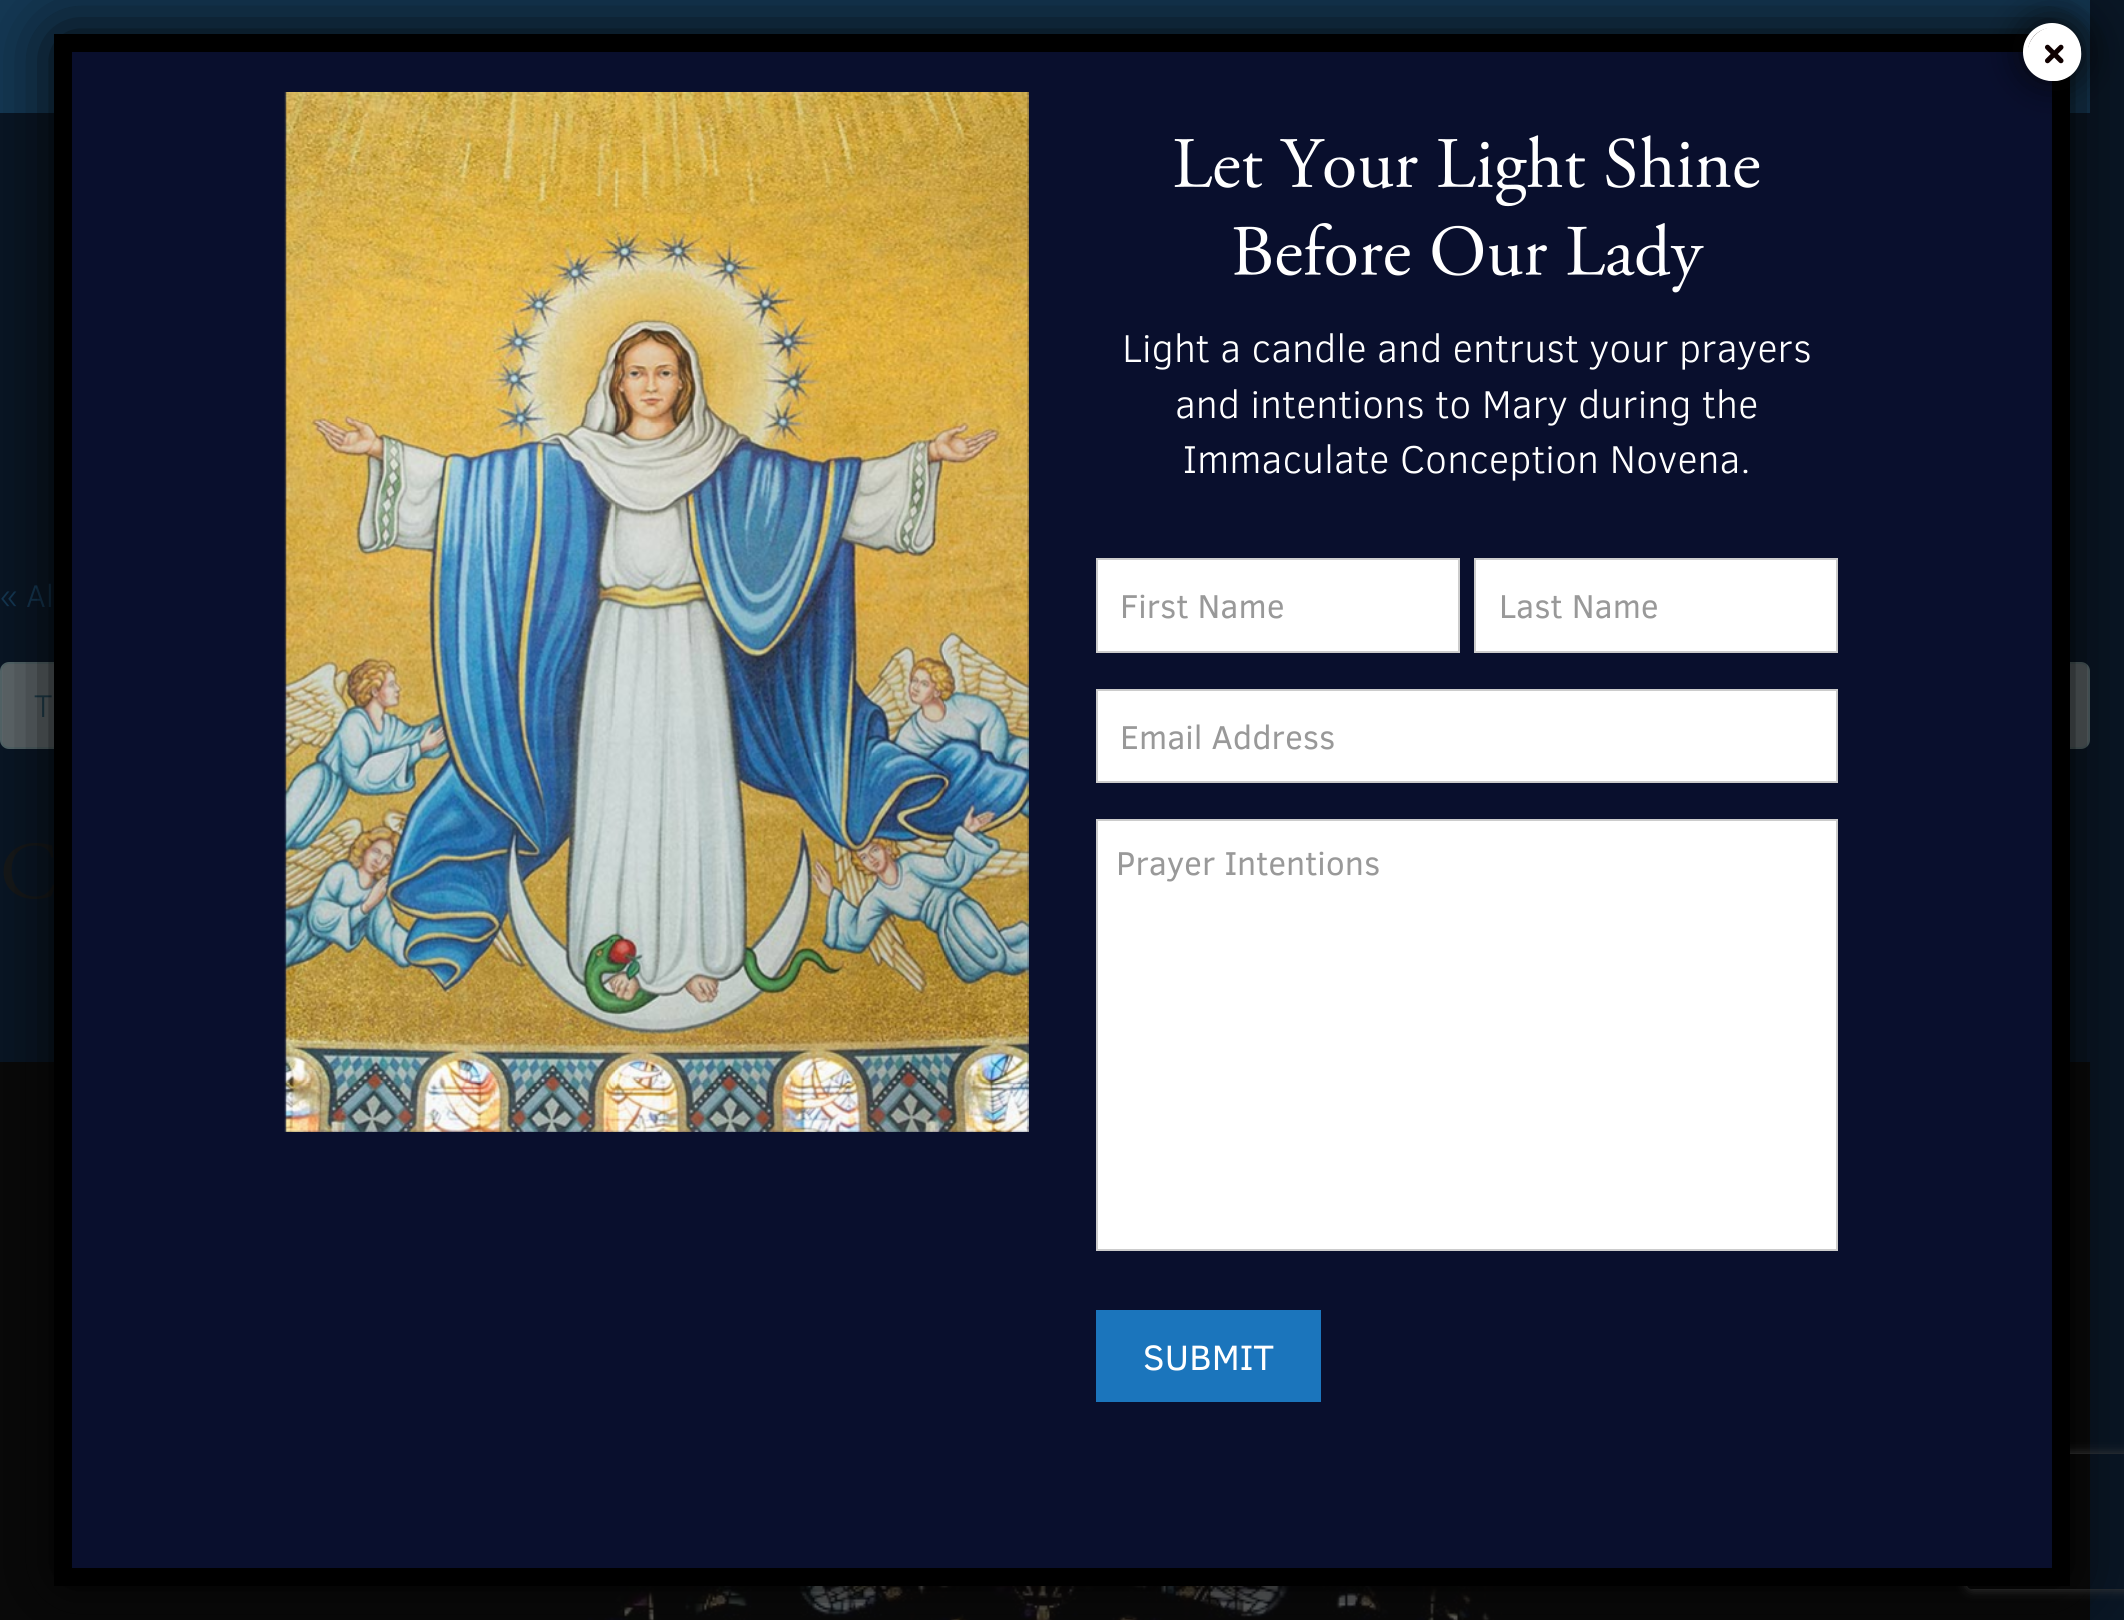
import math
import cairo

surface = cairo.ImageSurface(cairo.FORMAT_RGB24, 2124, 1620)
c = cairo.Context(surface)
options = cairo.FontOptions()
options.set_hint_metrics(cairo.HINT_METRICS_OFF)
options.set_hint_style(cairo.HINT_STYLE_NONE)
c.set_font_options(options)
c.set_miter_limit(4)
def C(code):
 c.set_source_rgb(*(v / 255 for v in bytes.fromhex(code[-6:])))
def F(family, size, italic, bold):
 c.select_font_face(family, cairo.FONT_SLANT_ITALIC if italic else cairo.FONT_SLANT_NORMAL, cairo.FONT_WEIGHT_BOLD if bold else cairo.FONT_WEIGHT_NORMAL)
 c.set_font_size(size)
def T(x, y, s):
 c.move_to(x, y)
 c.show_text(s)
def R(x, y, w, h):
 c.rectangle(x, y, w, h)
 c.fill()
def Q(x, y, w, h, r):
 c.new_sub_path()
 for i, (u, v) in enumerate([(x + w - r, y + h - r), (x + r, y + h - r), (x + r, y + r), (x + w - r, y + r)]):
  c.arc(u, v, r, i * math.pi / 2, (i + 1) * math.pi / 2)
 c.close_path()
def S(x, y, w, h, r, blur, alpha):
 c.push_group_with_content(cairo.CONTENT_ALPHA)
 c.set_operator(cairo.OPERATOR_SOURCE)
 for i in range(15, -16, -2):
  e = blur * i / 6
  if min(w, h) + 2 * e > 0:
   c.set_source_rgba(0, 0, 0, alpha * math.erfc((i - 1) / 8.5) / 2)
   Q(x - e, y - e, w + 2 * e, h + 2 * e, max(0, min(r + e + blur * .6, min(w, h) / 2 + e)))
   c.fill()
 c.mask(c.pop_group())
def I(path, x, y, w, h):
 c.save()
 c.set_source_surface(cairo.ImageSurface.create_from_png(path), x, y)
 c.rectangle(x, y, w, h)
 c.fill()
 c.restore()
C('091625')
c.paint()
C('143854')
R(0,0,2090,113)
F('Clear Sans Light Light',32,0,0)
T(0,607,'« Al')
C('60686c')
Q(1,663,2088,85,8)
c.fill_preserve()
C('546669')
c.stroke()
C('203f4e')
T(34,717,'T')
I('1.png',3,843,51,57)
I('2.png',0,1062,2091,558)
C('020202')
S(54,34,2016,1552,7,34,1)
c.save()
c.set_fill_rule(cairo.FILL_RULE_EVEN_ODD)
c.new_path()
c.move_to(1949,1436)
c.line_to(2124,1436)
c.line_to(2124,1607)
c.line_to(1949,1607)
c.close_path()
c.move_to(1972,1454)
c.line_to(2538,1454)
c.curve_to(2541,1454,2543,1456,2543,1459)
c.line_to(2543,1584)
c.curve_to(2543,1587,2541,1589,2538,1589)
c.line_to(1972,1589)
c.curve_to(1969,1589,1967,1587,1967,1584)
c.line_to(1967,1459)
c.curve_to(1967,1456,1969,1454,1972,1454)
c.close_path()
c.clip()
C('3c3c3c')
S(1967,1454,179,135,5,5.5,1)
c.restore()
C('090f2d')
R(72,52,1980,1516)
c.new_path()
c.move_to(63,43)
c.line_to(2061,43)
c.line_to(2061,1577)
c.line_to(63,1577)
c.close_path()
C('000000')
c.set_line_width(18)
c.stroke()
C('020202')
S(2021,20,63,63,31.5,17,.75)
C('0f0000')
c.arc(2052,52,26.5,0,2 * math.pi)
c.fill_preserve()
C('ffffff')
c.set_line_width(5)
c.stroke()
I('3.png',2028,28,54,53)
I('4.png',284,92,745,1040)
I('5.png',1174,135,586,72)
I('6.png',1233,223,471,70)
F('Clear Sans Light Light',39.6,0,0)
T(1122,362,'Light a candle and entrust your prayers')
T(1175,418,'and intentions to Mary during the')
T(1183,473,'Immaculate Conception Novena.')
c.rectangle(1097,559,362,93)
c.fill_preserve()
C('cccccc')
c.set_line_width(2)
c.stroke()
F('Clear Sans',33.75,0,0)
C('999999')
T(1120,618,'First Name')
C('ffffff')
c.rectangle(1475,559,362,93)
c.fill_preserve()
C('cccccc')
c.stroke()
C('999999')
T(1499,618,'Last Name')
C('ffffff')
c.rectangle(1097,690,740,92)
c.fill_preserve()
C('cccccc')
c.stroke()
C('999999')
T(1120,749,'Email Address')
C('ffffff')
c.rectangle(1097,820,740,430)
c.fill_preserve()
C('cccccc')
c.stroke()
C('999999')
T(1116,875,'Prayer Intentions')
C('1b75bc')
R(1096,1310,225,92)
F('Clear Sans',36,0,0)
C('ffffff')
T(1143,1370,'SUBMIT')
surface.write_to_png('o.png')
